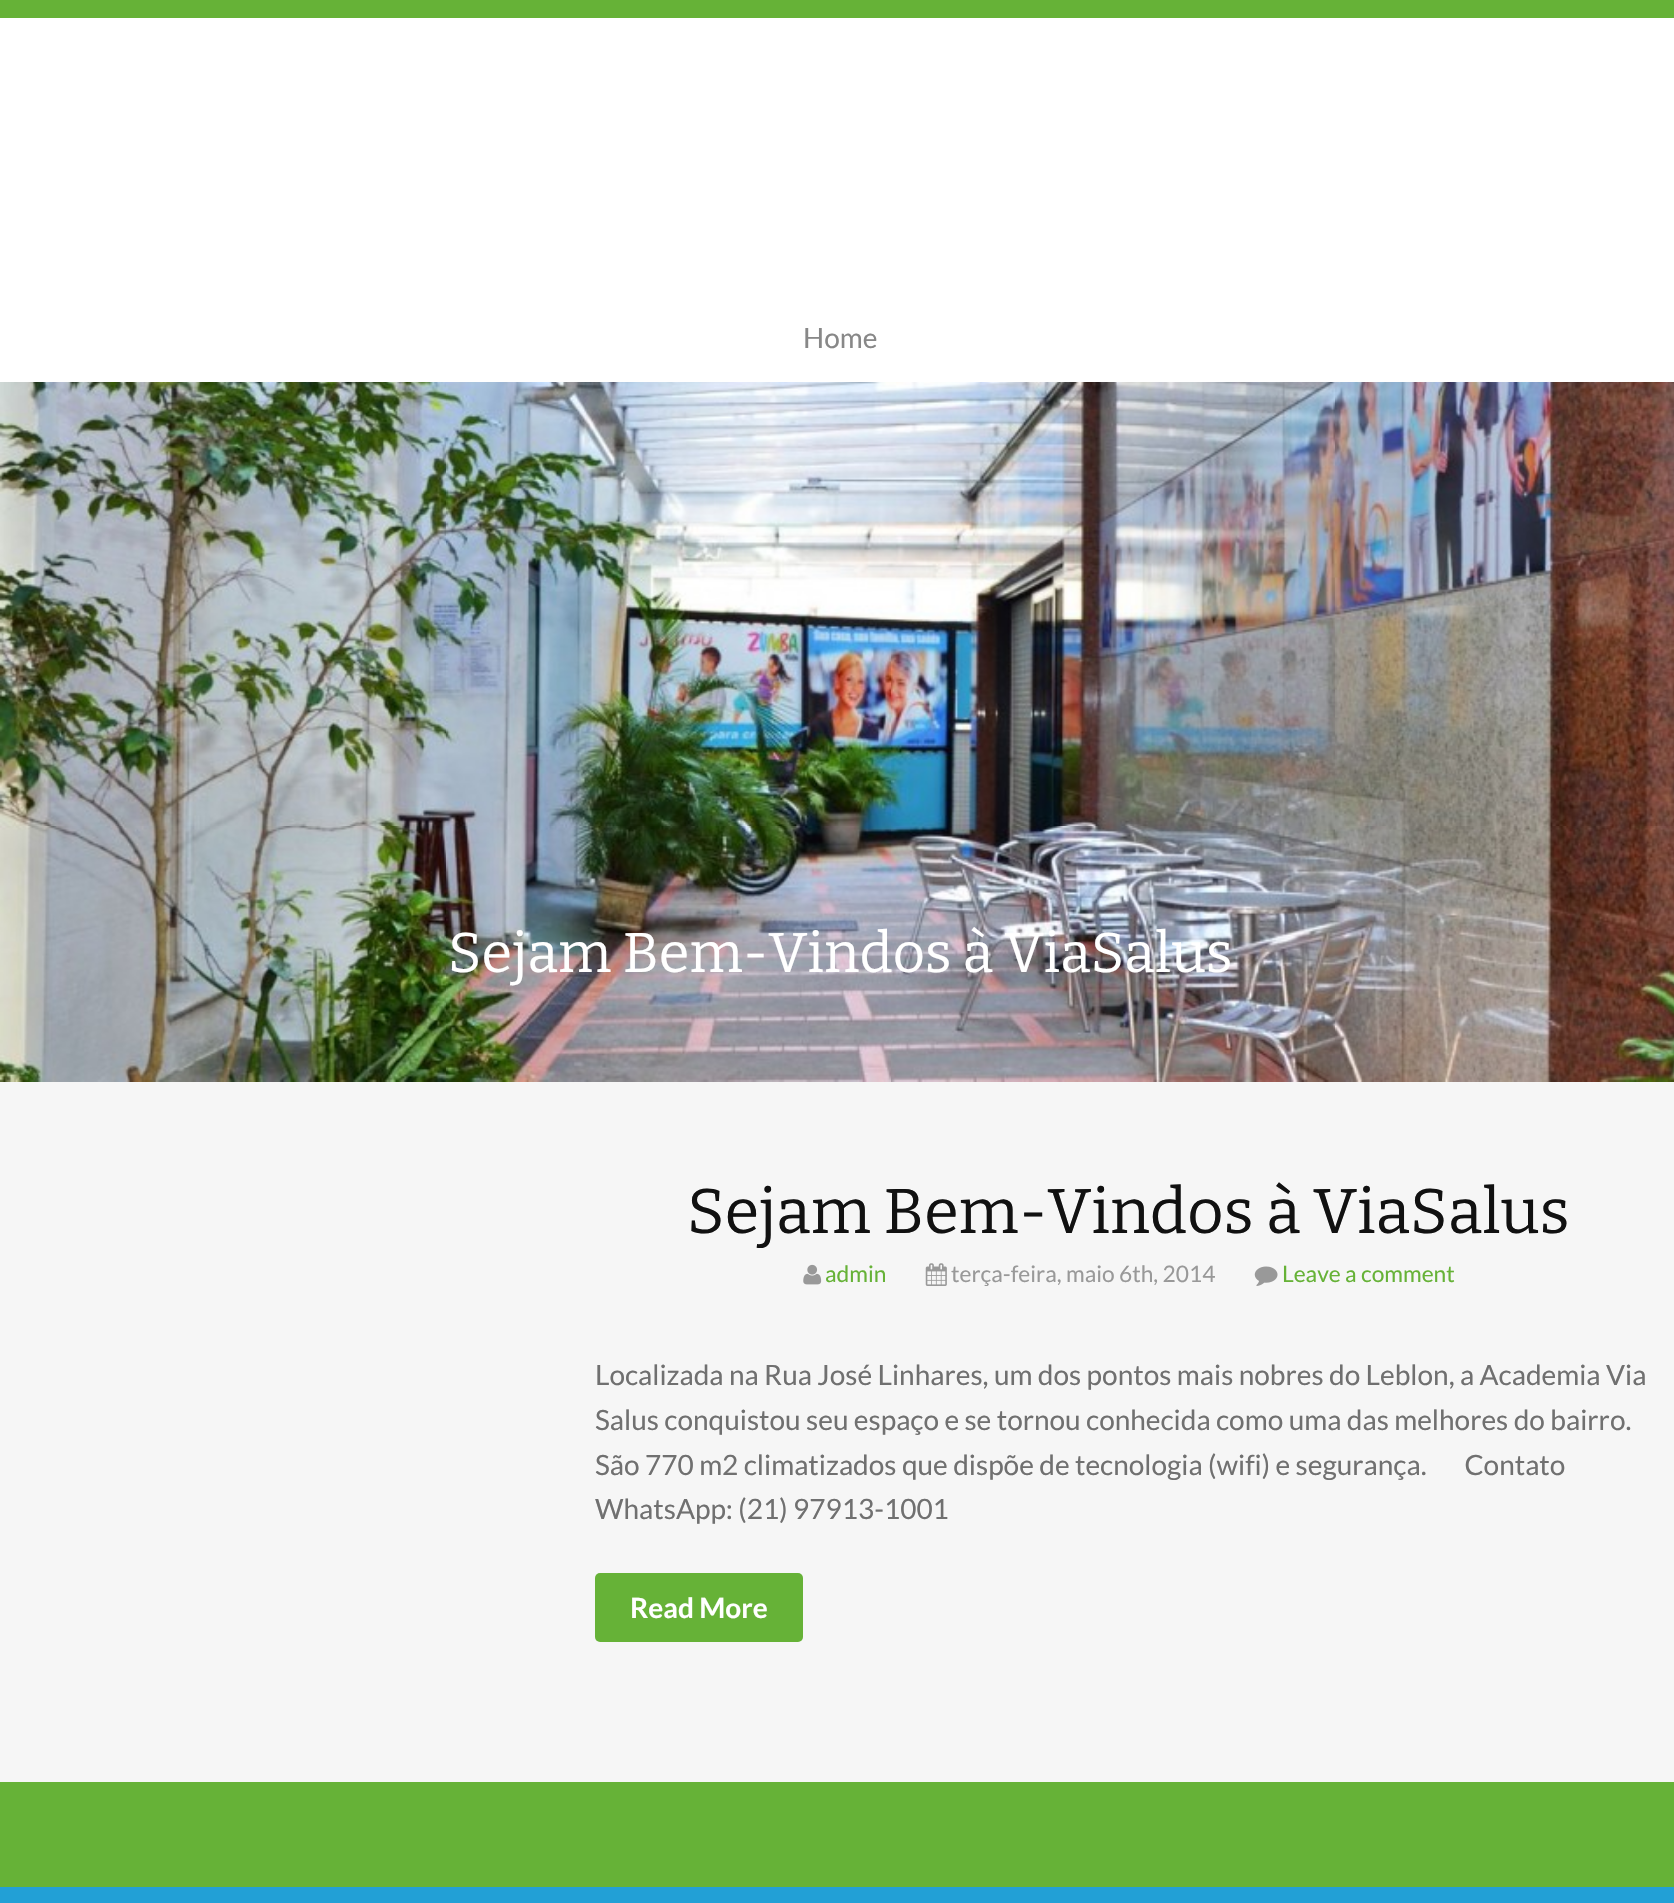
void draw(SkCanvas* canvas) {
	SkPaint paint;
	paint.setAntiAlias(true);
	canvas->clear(0xffffffff);
	paint.setColor(0xff66b237);
	canvas->drawRect(SkRect::MakeXYWH(0, 0, 1674, 18), paint);
	SkFont f1(fontMgr->matchFamilyStyle("Lato", SkFontStyle::Normal()), 28);
	f1.setSubpixel(true);
	paint.setColor(0xff888888);
	canvas->drawString("Home", 803, 348, f1, paint);
	canvas->drawImageRect(SkImages::DeferredFromEncodedData(SkData::MakeFromFileName("img1.png")), SkRect::MakeXYWH(0, 382, 1674, 700), SkSamplingOptions());
	SkFont f2(fontMgr->matchFamilyStyle("Bitter", SkFontStyle::Normal()), 56);
	f2.setSubpixel(true);
	paint.setColor(0xffffffff);
	canvas->drawString("Sejam Bem-Vindos à ViaSalus", 448, 972, f2, paint);
	paint.setColor(0xfff6f6f6);
	canvas->drawRect(SkRect::MakeXYWH(0, 1082, 1674, 700), paint);
	SkFont f3(fontMgr->matchFamilyStyle("Bitter", SkFontStyle::Normal()), 63);
	f3.setSubpixel(true);
	paint.setColor(0xff111111);
	canvas->drawString("Sejam Bem-Vindos à ViaSalus", 687, 1233, f3, paint);
	canvas->drawImageRect(SkImages::DeferredFromEncodedData(SkData::MakeFromFileName("img2.png")), SkRect::MakeXYWH(803, 1264, 19, 21), SkSamplingOptions());
	SkFont f4(fontMgr->matchFamilyStyle("Lato", SkFontStyle::Normal()), 22.75);
	f4.setSubpixel(true);
	paint.setColor(0xff66b237);
	canvas->drawString("admin", 825, 1282, f4, paint);
	canvas->drawImageRect(SkImages::DeferredFromEncodedData(SkData::MakeFromFileName("img3.png")), SkRect::MakeXYWH(925, 1263, 22, 23), SkSamplingOptions());
	paint.setColor(0xff999999);
	canvas->drawString("terça-feira, maio 6th, 2014", 951, 1282, f4, paint);
	canvas->drawImageRect(SkImages::DeferredFromEncodedData(SkData::MakeFromFileName("img4.png")), SkRect::MakeXYWH(1254, 1266, 24, 20), SkSamplingOptions());
	paint.setColor(0xff66b237);
	canvas->drawString("Leave a comment", 1282, 1282, f4, paint);
	paint.setColor(0xff707070);
	canvas->drawString("Localizada na Rua José Linhares, um dos pontos mais nobres do Leblon, a Academia Via", 595, 1385, f1, paint);
	canvas->drawString("Salus conquistou seu espaço e se tornou conhecida como uma das melhores do bairro.", 595, 1430, f1, paint);
	canvas->drawString("São 770 m2 climatizados que dispõe de tecnologia (wifi) e segurança.       Contato", 595, 1475, f1, paint);
	canvas->drawString("WhatsApp: (21) 97913-1001", 595, 1519, f1, paint);
	paint.setColor(0xff66b237);
	canvas->drawRoundRect(SkRect::MakeXYWH(595, 1573, 208, 69), 5, 5, paint);
	SkFont f5(fontMgr->matchFamilyStyle("Lato", SkFontStyle::Bold()), 28);
	f5.setSubpixel(true);
	paint.setColor(0xffffffff);
	canvas->drawString("Read More", 630, 1618, f5, paint);
	paint.setColor(0xff66b237);
	canvas->drawRect(SkRect::MakeXYWH(0, 1782, 1674, 105), paint);
	paint.setColor(0xff22a0d6);
	canvas->drawRect(SkRect::MakeXYWH(0, 1887, 1674, 16), paint);
}
